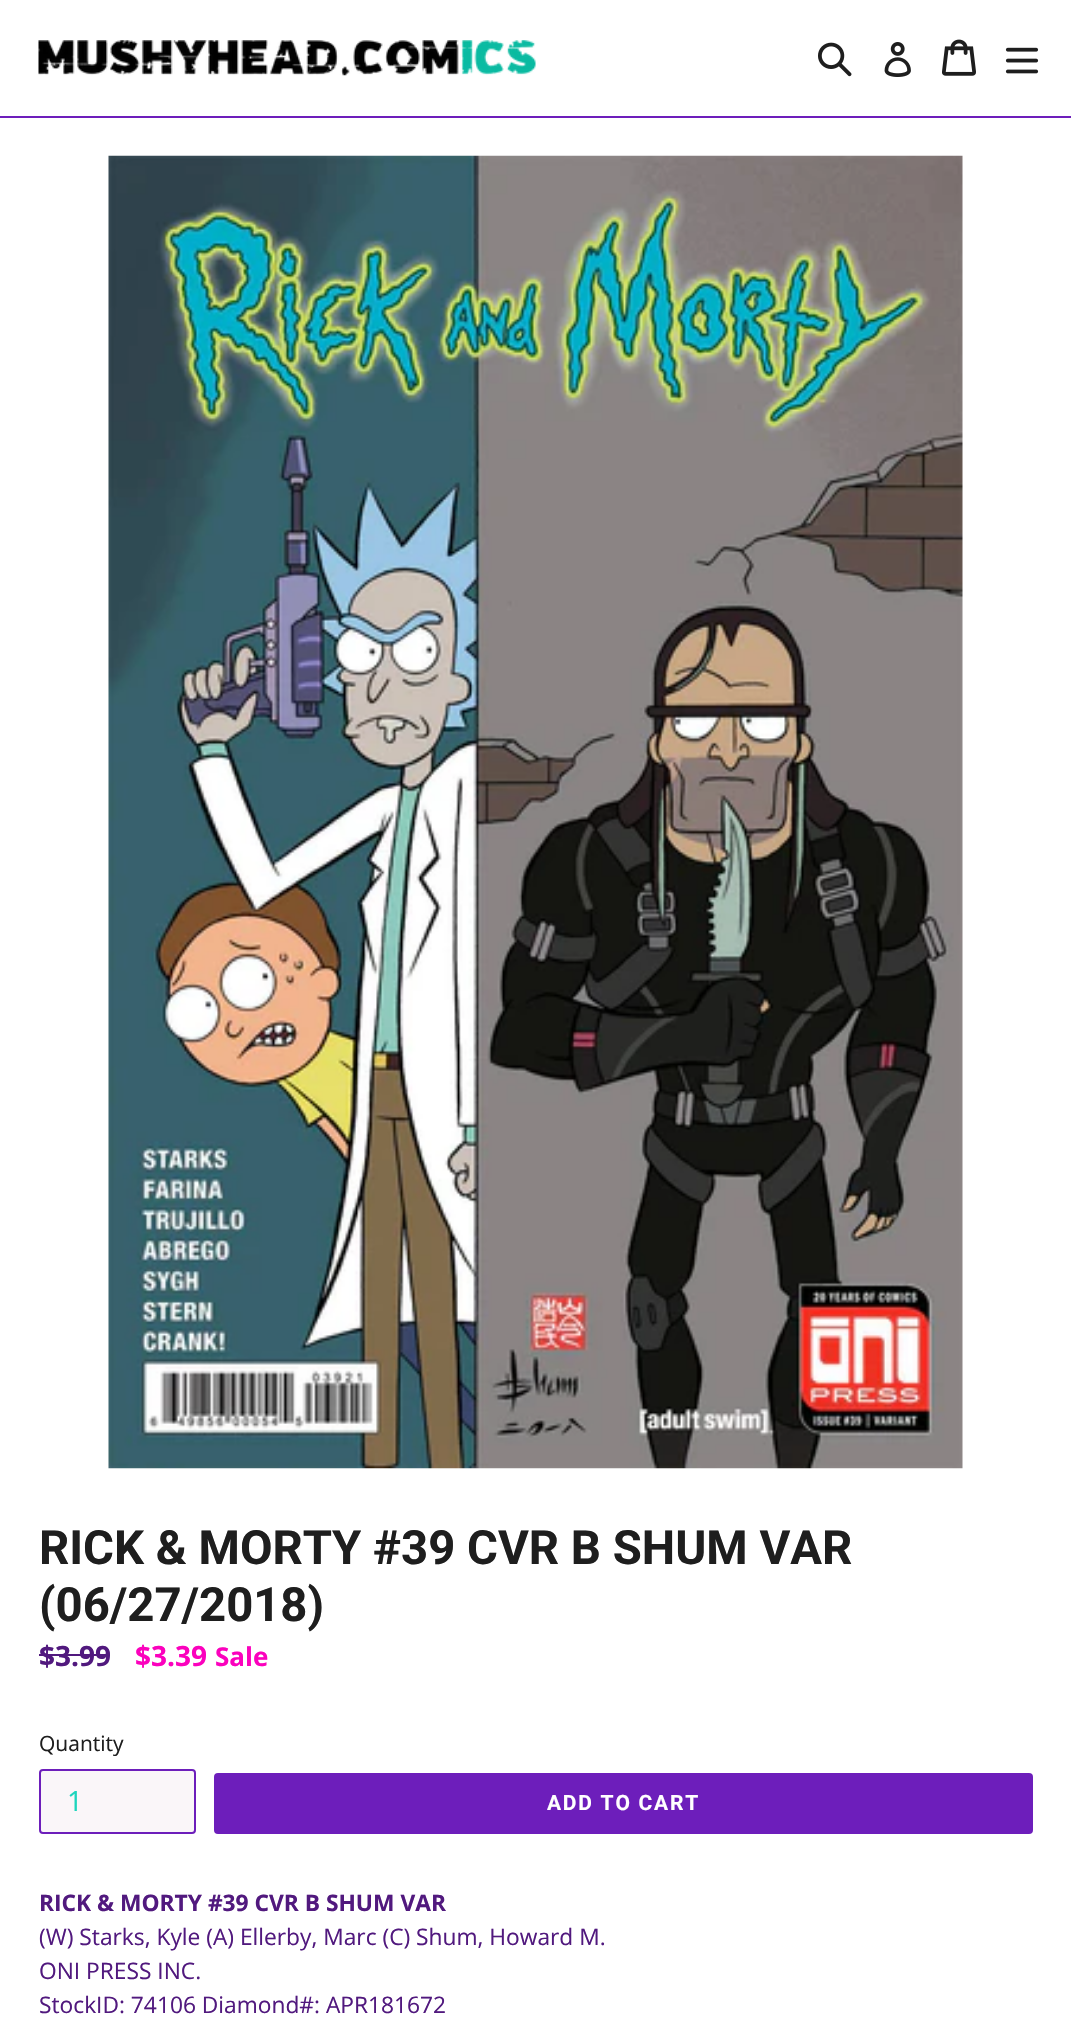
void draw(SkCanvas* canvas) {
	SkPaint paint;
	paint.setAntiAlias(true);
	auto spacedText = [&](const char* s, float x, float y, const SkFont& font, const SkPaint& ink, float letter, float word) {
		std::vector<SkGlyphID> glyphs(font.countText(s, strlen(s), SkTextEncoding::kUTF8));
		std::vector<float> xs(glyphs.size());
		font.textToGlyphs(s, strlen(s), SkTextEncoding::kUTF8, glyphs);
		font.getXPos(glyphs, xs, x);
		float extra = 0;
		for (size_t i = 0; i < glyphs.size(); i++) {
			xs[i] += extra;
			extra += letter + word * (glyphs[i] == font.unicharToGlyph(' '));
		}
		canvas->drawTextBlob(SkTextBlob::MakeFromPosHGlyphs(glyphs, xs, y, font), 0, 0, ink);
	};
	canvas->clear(0xffffffff);
	paint.setColor(0xff6d1ebb);
	canvas->drawRect(SkRect::MakeXYWH(0, 116, 1071, 2), paint);
	canvas->drawImageRect(SkImages::DeferredFromEncodedData(SkData::MakeFromFileName("img1.png")), SkRect::MakeXYWH(38, 40, 498, 36), SkSamplingOptions());
	canvas->drawImageRect(SkImages::DeferredFromEncodedData(SkData::MakeFromFileName("img2.png")), SkRect::MakeXYWH(818, 42, 34, 35), SkSamplingOptions());
	canvas->drawImageRect(SkImages::DeferredFromEncodedData(SkData::MakeFromFileName("img3.png")), SkRect::MakeXYWH(884, 42, 27, 35), SkSamplingOptions());
	canvas->drawImageRect(SkImages::DeferredFromEncodedData(SkData::MakeFromFileName("img4.png")), SkRect::MakeXYWH(942, 39, 34, 37), SkSamplingOptions());
	canvas->drawImageRect(SkImages::DeferredFromEncodedData(SkData::MakeFromFileName("img5.png")), SkRect::MakeXYWH(1005, 47, 34, 27), SkSamplingOptions());
	canvas->drawImageRect(SkImages::DeferredFromEncodedData(SkData::MakeFromFileName("img6.png")), SkRect::MakeXYWH(108, 155, 855, 1314), SkSamplingOptions());
	SkFont f1(fontMgr->matchFamilyStyle("Roboto", SkFontStyle::Bold()), 47.25);
	f1.setSubpixel(true);
	paint.setColor(0xff1e1e1e);
	canvas->drawString("RICK & MORTY #39 CVR B SHUM VAR", 39, 1564, f1, paint);
	canvas->drawString("(06/27/2018)", 39, 1621, f1, paint);
	SkFont f2(fontMgr->matchFamilyStyle("Open Sans", SkFontStyle::Bold()), 28);
	f2.setSubpixel(true);
	paint.setColor(0xff51197e);
	canvas->drawString("$3.99", 39, 1666, f2, paint);
	canvas->drawRect(SkRect::MakeXYWH(39, 1654, 71, 2), paint);
	paint.setColor(0xfffb01bd);
	canvas->drawString("$3.39", 135, 1666, f2, paint);
	SkFont f3(fontMgr->matchFamilyStyle("Open Sans", SkFontStyle::Bold()), 26);
	f3.setSubpixel(true);
	canvas->drawString("Sale", 215, 1666, f3, paint);
	SkFont f4(fontMgr->matchFamilyStyle("Open Sans", SkFontStyle::Normal()), 21);
	f4.setSubpixel(true);
	paint.setColor(0xff1e1e1e);
	canvas->drawString("Quantity", 39, 1751, f4, paint);
	paint.setColor(0xfffaf6f9);
	canvas->drawRoundRect(SkRect::MakeXYWH(40, 1770, 155, 63), 3, 3, paint);
	paint.setStroke(true);
	paint.setStrokeWidth(2);
	paint.setColor(0xff6d1ebb);
	canvas->drawRoundRect(SkRect::MakeXYWH(40, 1770, 155, 63), 3, 3, paint);
	SkFont f5(fontMgr->matchFamilyStyle("Open Sans", SkFontStyle::Normal()), 28);
	f5.setSubpixel(true);
	paint.setStroke(false);
	paint.setColor(0xff1dd5bd);
	canvas->drawString("1", 67, 1811, f5, paint);
	paint.setColor(0xff6d1ebb);
	canvas->drawRoundRect(SkRect::MakeXYWH(214, 1773, 819, 61), 4, 4, paint);
	SkFont f6(fontMgr->matchFamilyStyle("Roboto", SkFontStyle::Bold()), 21);
	f6.setSubpixel(true);
	paint.setColor(0xffffffff);
	spacedText("ADD TO CART", 547, 1810, f6, paint, 1.75, 0);
	SkFont f7(fontMgr->matchFamilyStyle("Open Sans", SkFontStyle::Bold()), 22.75);
	f7.setSubpixel(true);
	paint.setColor(0xff51197e);
	canvas->drawString("RICK & MORTY #39 CVR B SHUM VAR", 39, 1911, f7, paint);
	SkFont f8(fontMgr->matchFamilyStyle("Open Sans", SkFontStyle::Normal()), 22.75);
	f8.setSubpixel(true);
	canvas->drawString("(W) Starks, Kyle (A) Ellerby, Marc (C) Shum, Howard M.", 39, 1945, f8, paint);
	canvas->drawString("ONI PRESS INC.", 39, 1979, f8, paint);
	canvas->drawString("StockID: 74106 Diamond#: APR181672", 39, 2013, f8, paint);
}
